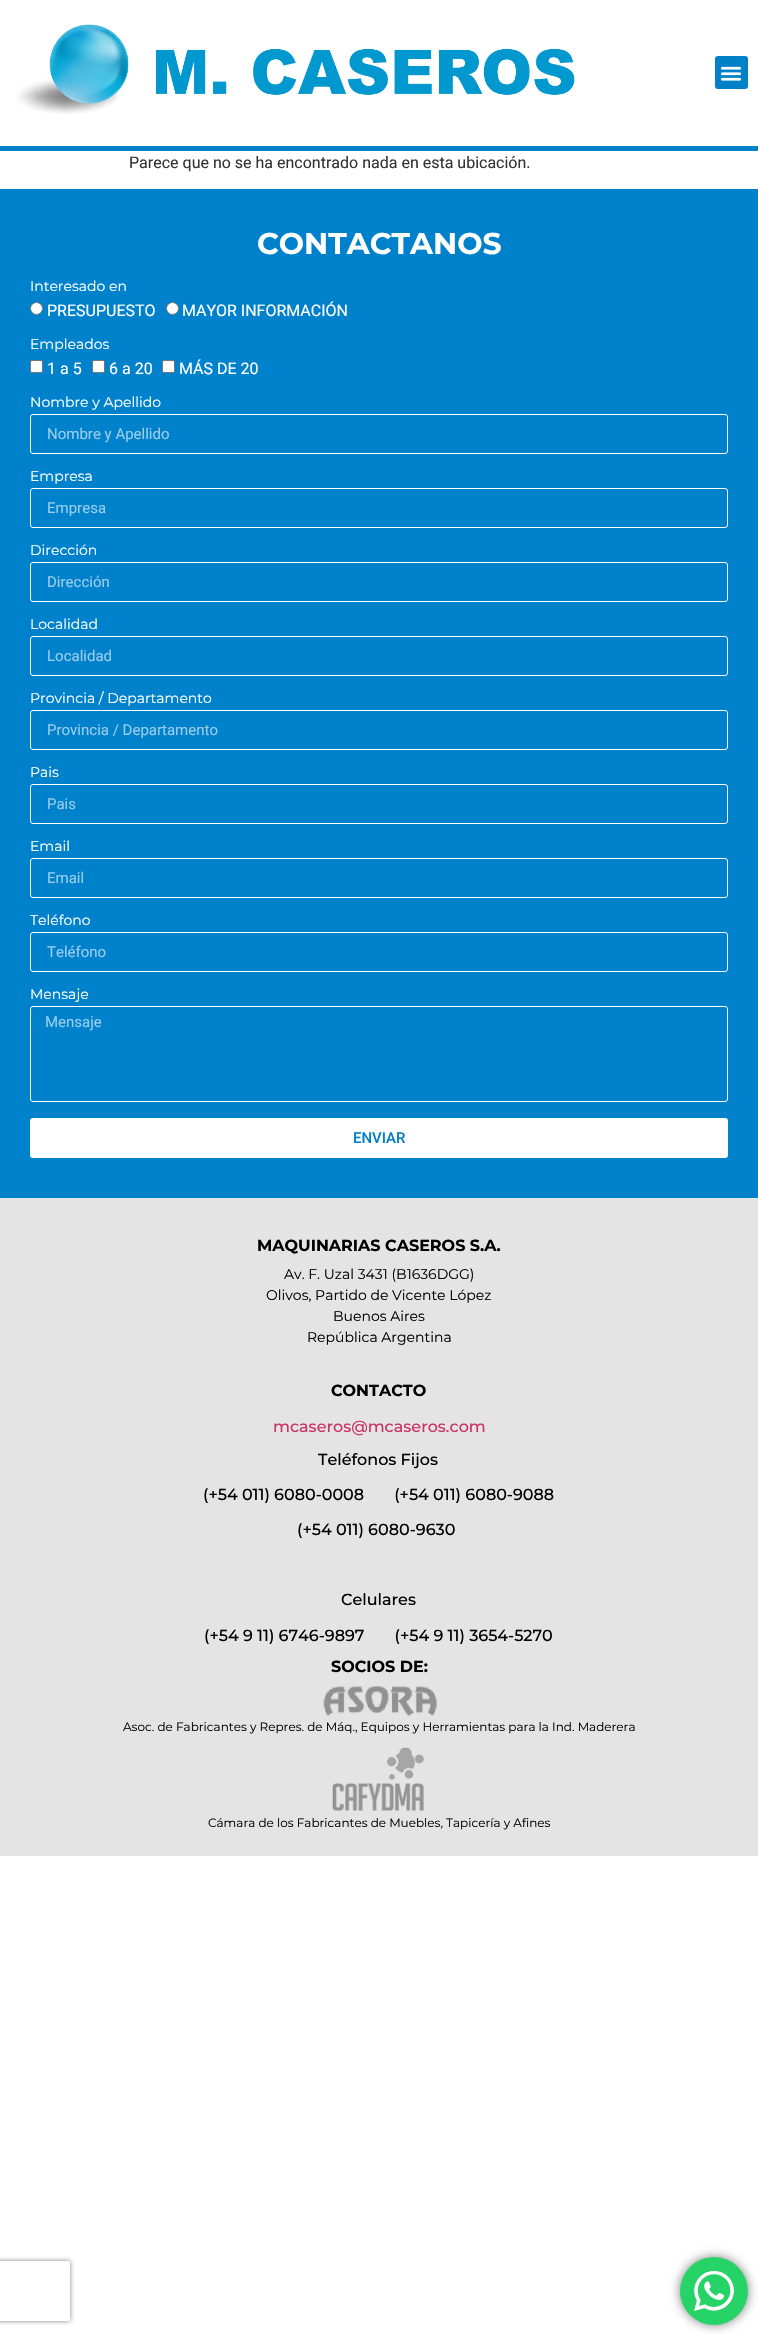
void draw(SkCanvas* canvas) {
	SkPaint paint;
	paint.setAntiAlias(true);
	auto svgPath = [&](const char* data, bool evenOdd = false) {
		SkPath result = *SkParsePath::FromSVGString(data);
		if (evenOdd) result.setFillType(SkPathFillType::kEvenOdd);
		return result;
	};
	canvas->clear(0xffffffff);
	paint.setColor(0xff0081c8);
	canvas->drawRect(SkRect::MakeXYWH(0, 146, 758, 5), paint);
	canvas->drawImageRect(SkImages::DeferredFromEncodedData(SkData::MakeFromFileName("img1.png")), SkRect::MakeXYWH(16, 24, 559, 90), SkSamplingOptions());
	canvas->drawRoundRect(SkRect::MakeXYWH(715, 56, 33, 33), 3, 3, paint);
	canvas->drawImageRect(SkImages::DeferredFromEncodedData(SkData::MakeFromFileName("img2.png")), SkRect::MakeXYWH(720, 66, 22, 15), SkSamplingOptions());
	SkFont f1(fontMgr->matchFamilyStyle("Roboto", SkFontStyle::Normal()), 16);
	f1.setSubpixel(true);
	paint.setColor(0xff333333);
	canvas->drawString("Parece que no se ha encontrado nada en esta ubicación.", 129, 168, f1, paint);
	paint.setColor(0xff0081cc);
	canvas->drawRect(SkRect::MakeXYWH(0, 189, 758, 1009), paint);
	SkFont f2(fontMgr->matchFamilyStyle("Montserrat", SkFontStyle::Bold()), 30);
	f2.setSubpixel(true);
	paint.setColor(0xffffffff);
	canvas->drawString("CONTACTANOS", 257, 254, f2, paint);
	SkFont f3(fontMgr->matchFamilyStyle("Montserrat", SkFontStyle::Normal()), 14);
	f3.setSubpixel(true);
	canvas->drawString("Interesado en", 30, 291, f3, paint);
	canvas->drawCircle(36.5, 308.5, 6, paint);
	paint.setStroke(true);
	paint.setStrokeWidth(1);
	paint.setColor(0xff767676);
	canvas->drawCircle(36.5, 308.5, 6, paint);
	paint.setStroke(false);
	paint.setColor(0xffffffff);
	canvas->drawString("PRESUPUESTO", 47, 316, f1, paint);
	canvas->drawCircle(172.5, 308.5, 6, paint);
	paint.setStroke(true);
	paint.setColor(0xff767676);
	canvas->drawCircle(172.5, 308.5, 6, paint);
	paint.setStroke(false);
	paint.setColor(0xffffffff);
	canvas->drawString("MAYOR INFORMACIÓN", 182, 316, f1, paint);
	canvas->drawString("Empleados", 30, 349, f3, paint);
	canvas->drawRoundRect(SkRect::MakeXYWH(30.5, 360.5, 12, 12), 1.5, 1.5, paint);
	paint.setStroke(true);
	paint.setColor(0xff767676);
	canvas->drawRoundRect(SkRect::MakeXYWH(30.5, 360.5, 12, 12), 1.5, 1.5, paint);
	paint.setStroke(false);
	paint.setColor(0xffffffff);
	canvas->drawString("1 a 5", 47, 374, f1, paint);
	canvas->drawRoundRect(SkRect::MakeXYWH(92.5, 360.5, 12, 12), 1.5, 1.5, paint);
	paint.setStroke(true);
	paint.setColor(0xff767676);
	canvas->drawRoundRect(SkRect::MakeXYWH(92.5, 360.5, 12, 12), 1.5, 1.5, paint);
	paint.setStroke(false);
	paint.setColor(0xffffffff);
	canvas->drawString("6 a 20", 109, 374, f1, paint);
	canvas->drawRoundRect(SkRect::MakeXYWH(162.5, 360.5, 12, 12), 1.5, 1.5, paint);
	paint.setStroke(true);
	paint.setColor(0xff767676);
	canvas->drawRoundRect(SkRect::MakeXYWH(162.5, 360.5, 12, 12), 1.5, 1.5, paint);
	paint.setStroke(false);
	paint.setColor(0xffffffff);
	canvas->drawString("MÁS DE 20", 179, 374, f1, paint);
	canvas->drawString("Nombre y Apellido", 30, 407, f3, paint);
	paint.setStroke(true);
	canvas->drawRoundRect(SkRect::MakeXYWH(30.5, 414.5, 697, 39), 2.5, 2.5, paint);
	SkFont f4(fontMgr->matchFamilyStyle("Roboto", SkFontStyle::Normal()), 15);
	f4.setSubpixel(true);
	paint.setStroke(false);
	paint.setColor(0xff99cdeb);
	canvas->drawString("Nombre y Apellido", 47, 439, f4, paint);
	paint.setColor(0xffffffff);
	canvas->drawString("Empresa", 30, 481, f3, paint);
	paint.setStroke(true);
	canvas->drawRoundRect(SkRect::MakeXYWH(30.5, 488.5, 697, 39), 2.5, 2.5, paint);
	paint.setStroke(false);
	paint.setColor(0xff99cdeb);
	canvas->drawString("Empresa", 47, 513, f4, paint);
	paint.setColor(0xffffffff);
	canvas->drawString("Dirección", 30, 555, f3, paint);
	paint.setStroke(true);
	canvas->drawRoundRect(SkRect::MakeXYWH(30.5, 562.5, 697, 39), 2.5, 2.5, paint);
	paint.setStroke(false);
	paint.setColor(0xff99cdeb);
	canvas->drawString("Dirección", 47, 587, f4, paint);
	paint.setColor(0xffffffff);
	canvas->drawString("Localidad", 30, 629, f3, paint);
	paint.setStroke(true);
	canvas->drawRoundRect(SkRect::MakeXYWH(30.5, 636.5, 697, 39), 2.5, 2.5, paint);
	paint.setStroke(false);
	paint.setColor(0xff99cdeb);
	canvas->drawString("Localidad", 47, 661, f4, paint);
	paint.setColor(0xffffffff);
	canvas->drawString("Provincia / Departamento", 30, 703, f3, paint);
	paint.setStroke(true);
	canvas->drawRoundRect(SkRect::MakeXYWH(30.5, 710.5, 697, 39), 2.5, 2.5, paint);
	paint.setStroke(false);
	paint.setColor(0xff99cdeb);
	canvas->drawString("Provincia / Departamento", 47, 735, f4, paint);
	paint.setColor(0xffffffff);
	canvas->drawString("Pais", 30, 777, f3, paint);
	paint.setStroke(true);
	canvas->drawRoundRect(SkRect::MakeXYWH(30.5, 784.5, 697, 39), 2.5, 2.5, paint);
	paint.setStroke(false);
	paint.setColor(0xff99cdeb);
	canvas->drawString("Pais", 47, 809, f4, paint);
	paint.setColor(0xffffffff);
	canvas->drawString("Email", 30, 851, f3, paint);
	paint.setStroke(true);
	canvas->drawRoundRect(SkRect::MakeXYWH(30.5, 858.5, 697, 39), 2.5, 2.5, paint);
	paint.setStroke(false);
	paint.setColor(0xff99cdeb);
	canvas->drawString("Email", 47, 883, f4, paint);
	paint.setColor(0xffffffff);
	canvas->drawString("Teléfono", 30, 925, f3, paint);
	paint.setStroke(true);
	canvas->drawRoundRect(SkRect::MakeXYWH(30.5, 932.5, 697, 39), 2.5, 2.5, paint);
	paint.setStroke(false);
	paint.setColor(0xff99cdeb);
	canvas->drawString("Teléfono", 47, 957, f4, paint);
	paint.setColor(0xffffffff);
	canvas->drawString("Mensaje", 30, 999, f3, paint);
	paint.setStroke(true);
	canvas->drawRoundRect(SkRect::MakeXYWH(30.5, 1006.5, 697, 95), 2.5, 2.5, paint);
	paint.setStroke(false);
	paint.setColor(0xff99cdeb);
	canvas->drawString("Mensaje", 45, 1027, f4, paint);
	paint.setColor(0xffffffff);
	canvas->drawRoundRect(SkRect::MakeXYWH(30, 1118, 698, 40), 3, 3, paint);
	SkFont f5(fontMgr->matchFamilyStyle("Roboto", SkFontStyle(500, SkFontStyle::kNormal_Width, SkFontStyle::kUpright_Slant)), 15);
	f5.setSubpixel(true);
	paint.setColor(0xff0080c6);
	canvas->drawString("ENVIAR", 353, 1143, f5, paint);
	canvas->save();
	canvas->clipPath(svgPath("M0 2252H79V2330H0ZM-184 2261H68C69 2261 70 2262 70 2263V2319C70 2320 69 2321 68 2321H-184C-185 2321-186 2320-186 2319V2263C-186 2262-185 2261-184 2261Z", true), true);
	paint.setColor(0xff808080);
	paint.setMaskFilter(SkMaskFilter::MakeBlur(kNormal_SkBlurStyle, 2.5));
	canvas->drawRoundRect(SkRect::MakeXYWH(-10, 2261, 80, 60), 2, 2, paint);
	paint.setMaskFilter(nullptr);
	canvas->restore();
	paint.setColor(0xffe4e4e4);
	canvas->drawRect(SkRect::MakeXYWH(0, 1198, 758, 658), paint);
	SkFont f6(fontMgr->matchFamilyStyle("Montserrat", SkFontStyle::Bold()), 16);
	f6.setSubpixel(true);
	paint.setColor(0xff000000);
	canvas->drawString("MAQUINARIAS CASEROS S.A.", 257, 1251, f6, paint);
	canvas->drawString("Av. F. Uzal 3431 (B1636DGG)", 284, 1279, f3, paint);
	canvas->drawString("Olivos, Partido de Vicente López", 266, 1300, f3, paint);
	canvas->drawString("Buenos Aires", 333, 1321, f3, paint);
	canvas->drawString("República Argentina", 307, 1342, f3, paint);
	canvas->drawString("CONTACTO", 331, 1396, f6, paint);
	SkFont f7(fontMgr->matchFamilyStyle("Montserrat", SkFontStyle(500, SkFontStyle::kNormal_Width, SkFontStyle::kUpright_Slant)), 16);
	f7.setSubpixel(true);
	paint.setColor(0xffcc3366);
	canvas->drawString("mcaseros@mcaseros.com", 273, 1432, f7, paint);
	paint.setColor(0xff000000);
	canvas->drawString("Teléfonos Fijos", 318, 1465, f7, paint);
	canvas->drawString("(+54 011) 6080-0008       (+54 011) 6080-9088", 203, 1500, f7, paint);
	canvas->drawString("(+54 011) 6080-9630", 297, 1535, f7, paint);
	canvas->drawString("Celulares", 341, 1605, f7, paint);
	canvas->drawString("(+54 9 11) 6746-9897       (+54 9 11) 3654-5270", 204, 1641, f7, paint);
	canvas->drawString("SOCIOS DE:", 331, 1672, f6, paint);
	canvas->drawImageRect(SkImages::DeferredFromEncodedData(SkData::MakeFromFileName("img3.png")), SkRect::MakeXYWH(323, 1685, 115, 32), SkSamplingOptions());
	SkFont f8(fontMgr->matchFamilyStyle("Montserrat", SkFontStyle::Normal()), 12);
	f8.setSubpixel(true);
	canvas->drawString("Asoc. de Fabricantes y Repres. de Máq., Equipos y Herramientas para la Ind. Maderera", 123, 1731, f8, paint);
	canvas->drawImageRect(SkImages::DeferredFromEncodedData(SkData::MakeFromFileName("img4.png")), SkRect::MakeXYWH(332, 1747, 92, 64), SkSamplingOptions());
	canvas->drawString("Cámara de los Fabricantes de Muebles, Tapicería y Afines", 208, 1827, f8, paint);
	paint.setColor(0x80000000);
	paint.setMaskFilter(SkMaskFilter::MakeBlur(kNormal_SkBlurStyle, 5.5));
	canvas->drawRoundRect(SkRect::MakeXYWH(680, 2257, 68, 68), 34, 34, paint);
	paint.setMaskFilter(nullptr);
	paint.setColor(0xff25d366);
	canvas->drawCircle(714, 2291, 34, paint);
	canvas->drawImageRect(SkImages::DeferredFromEncodedData(SkData::MakeFromFileName("img5.png")), SkRect::MakeXYWH(694, 2271, 40, 40), SkSamplingOptions());
}
